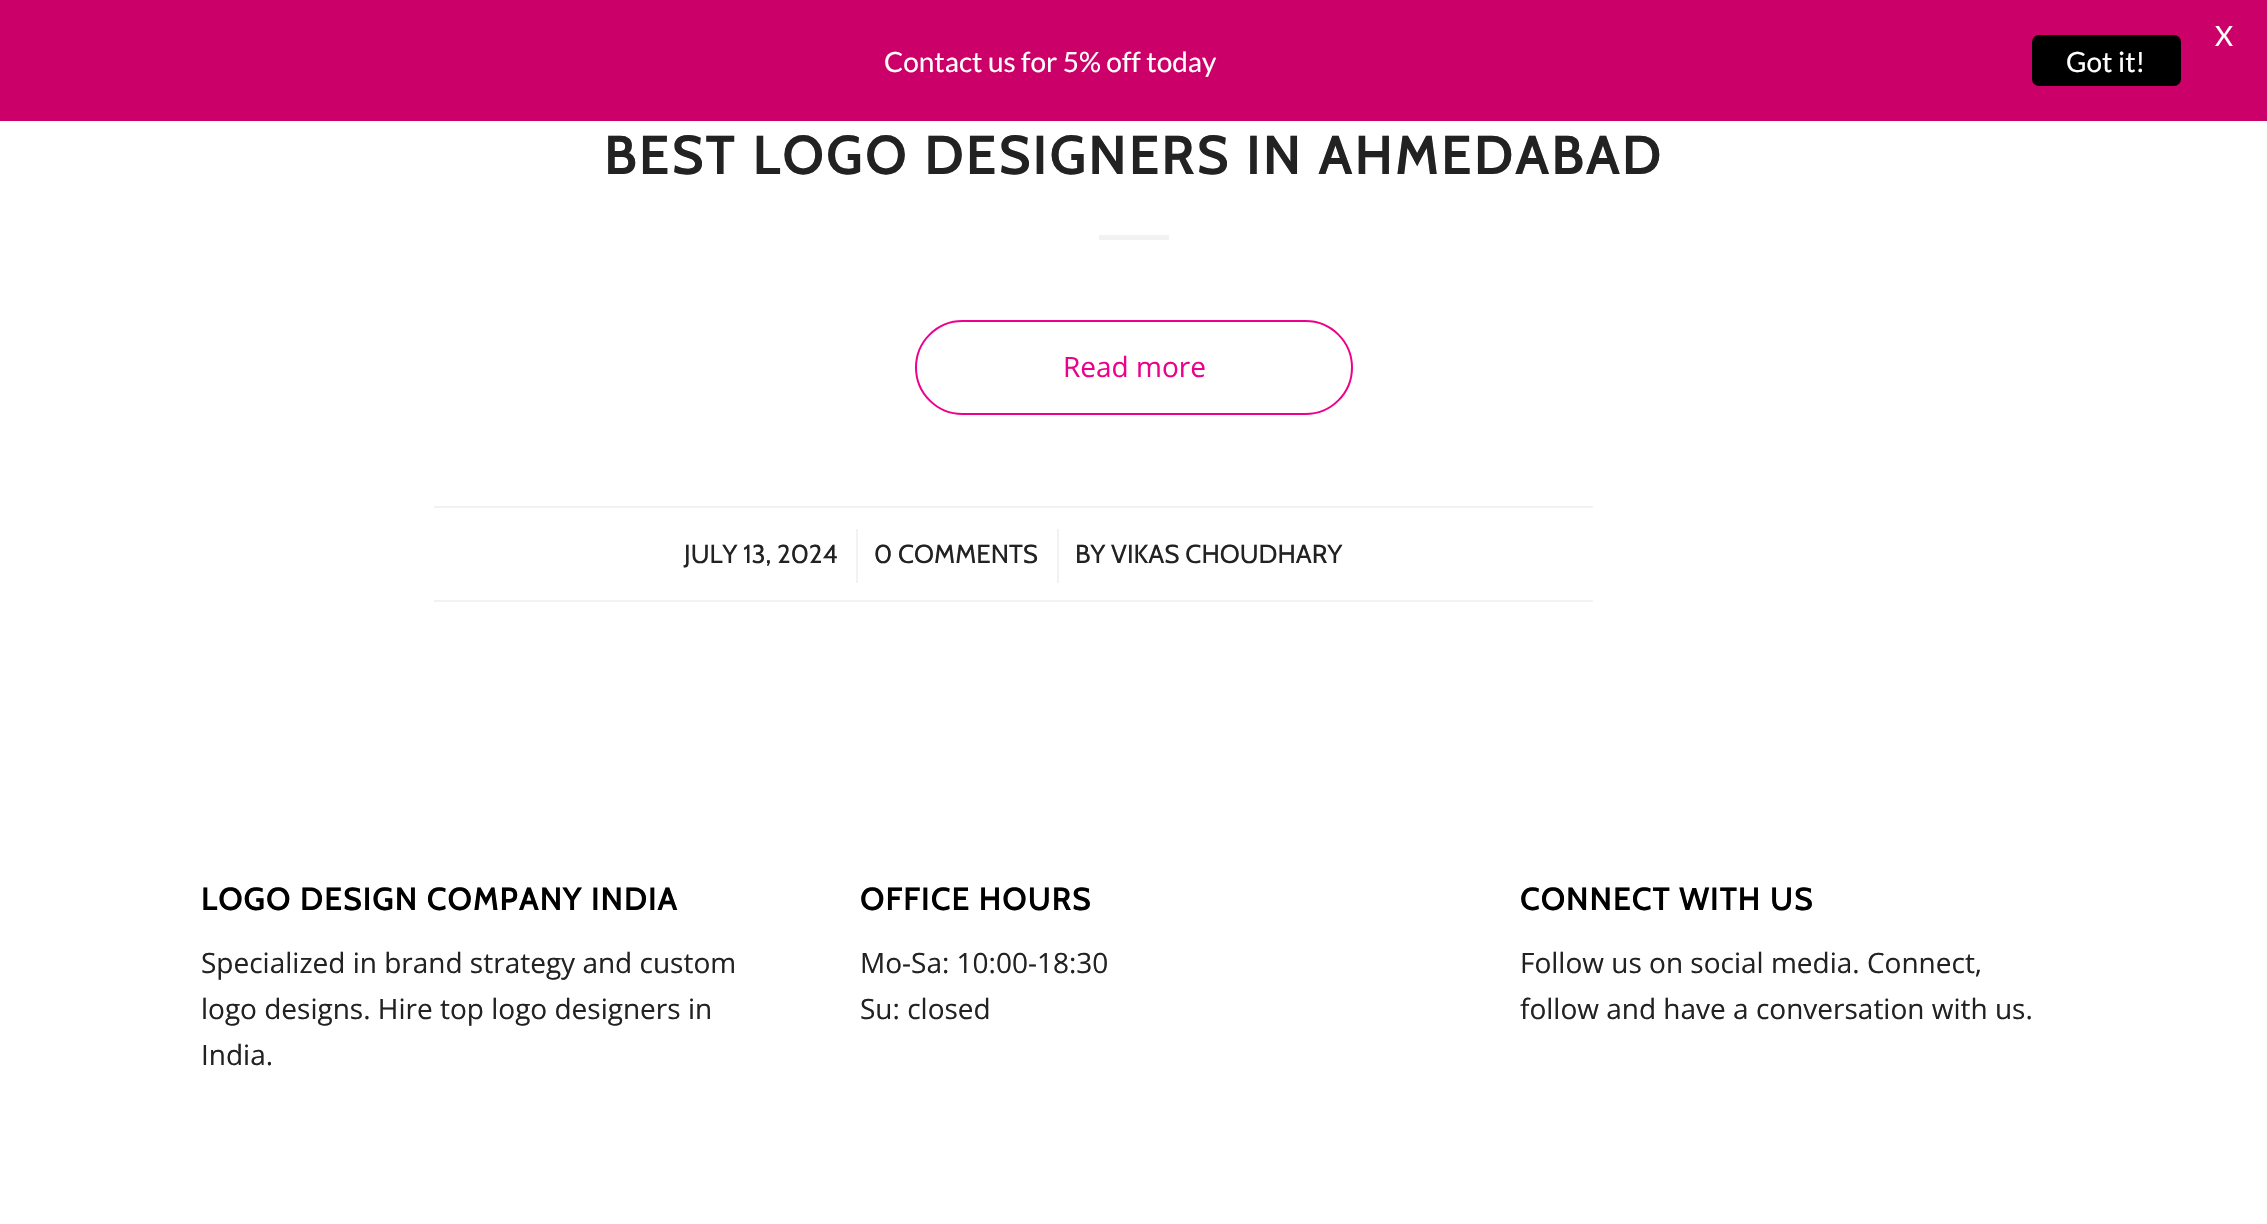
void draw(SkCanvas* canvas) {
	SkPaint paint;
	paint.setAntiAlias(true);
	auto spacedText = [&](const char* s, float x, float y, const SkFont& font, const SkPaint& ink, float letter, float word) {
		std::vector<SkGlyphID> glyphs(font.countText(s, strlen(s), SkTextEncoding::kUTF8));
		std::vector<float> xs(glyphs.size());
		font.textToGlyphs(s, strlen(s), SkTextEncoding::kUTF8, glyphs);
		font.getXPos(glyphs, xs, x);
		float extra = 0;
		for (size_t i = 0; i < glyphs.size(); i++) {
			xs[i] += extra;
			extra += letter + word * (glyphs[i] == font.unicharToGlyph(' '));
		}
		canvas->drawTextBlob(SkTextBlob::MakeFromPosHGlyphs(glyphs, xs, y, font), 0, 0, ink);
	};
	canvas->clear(0xffffffff);
	paint.setColor(0xffcb0068);
	canvas->drawRect(SkRect::MakeXYWH(0, 0, 2267, 121), paint);
	SkFont f1(fontMgr->matchFamilyStyle("Lato", SkFontStyle::Normal()), 28);
	f1.setSubpixel(true);
	paint.setColor(0xffffffff);
	canvas->drawString("X", 2215, 46, f1, paint);
	canvas->drawString("Contact us for 5% off today", 884, 72, f1, paint);
	paint.setColor(0xff000000);
	canvas->drawRoundRect(SkRect::MakeXYWH(2032, 35, 149, 51), 7, 7, paint);
	paint.setColor(0xffffffff);
	canvas->drawString("Got it!", 2066, 72, f1, paint);
	SkFont f2(fontMgr->matchFamilyStyle("Cabin", SkFontStyle::Bold()), 52.5);
	f2.setSubpixel(true);
	paint.setColor(0xff222222);
	spacedText("BEST LOGO DESIGNERS IN AHMEDABAD", 604, 174, f2, paint, 3.5, 0);
	paint.setColor(0xfff2f2f2);
	canvas->drawRect(SkRect::MakeXYWH(1099, 235, 70, 5), paint);
	paint.setStroke(true);
	paint.setStrokeWidth(2);
	paint.setColor(0xffed008a);
	canvas->drawRoundRect(SkRect::MakeXYWH(916, 321, 436, 93), 46.5, 46.5, paint);
	SkFont f3(fontMgr->matchFamilyStyle("Open Sans", SkFontStyle::Normal()), 28);
	f3.setSubpixel(true);
	paint.setStroke(false);
	canvas->drawString("Read more", 1063, 377, f3, paint);
	paint.setColor(0xfff2f2f2);
	canvas->drawRect(SkRect::MakeXYWH(434, 506, 1159, 2), paint);
	canvas->drawRect(SkRect::MakeXYWH(434, 600, 1159, 2), paint);
	SkFont f4(fontMgr->matchFamilyStyle("Cabin", SkFontStyle::Normal()), 26);
	f4.setSubpixel(true);
	paint.setColor(0xff222222);
	canvas->drawString("JULY 13, 2024", 684, 563, f4, paint);
	paint.setColor(0xfff2f2f2);
	canvas->drawRect(SkRect::MakeXYWH(856, 529, 2, 54), paint);
	paint.setColor(0xff222222);
	canvas->drawString("0 COMMENTS", 874, 563, f4, paint);
	paint.setColor(0xfff2f2f2);
	canvas->drawRect(SkRect::MakeXYWH(1057, 529, 2, 54), paint);
	paint.setColor(0xff222222);
	canvas->drawString("BY VIKAS CHOUDHARY", 1075, 563, f4, paint);
	SkFont f5(fontMgr->matchFamilyStyle("Cabin", SkFontStyle::Bold()), 30.75);
	f5.setSubpixel(true);
	paint.setColor(0xff000000);
	spacedText("LOGO DESIGN COMPANY INDIA", 201, 910, f5, paint, 1.75, 0);
	paint.setColor(0xff222222);
	canvas->drawString("Specialized in brand strategy and custom", 201, 973, f3, paint);
	canvas->drawString("logo designs. Hire top logo designers in", 201, 1019, f3, paint);
	canvas->drawString("India.", 201, 1065, f3, paint);
	paint.setColor(0xff000000);
	spacedText("OFFICE HOURS", 860, 910, f5, paint, 1.75, 0);
	paint.setColor(0xff222222);
	canvas->drawString("Mo-Sa: 10:00-18:30", 860, 973, f3, paint);
	canvas->drawString("Su: closed", 860, 1019, f3, paint);
	paint.setColor(0xff000000);
	spacedText("CONNECT WITH US", 1520, 910, f5, paint, 1.75, 0);
	paint.setColor(0xff222222);
	canvas->drawString("Follow us on social media. Connect,", 1520, 973, f3, paint);
	canvas->drawString("follow and have a conversation with us.", 1520, 1019, f3, paint);
}
